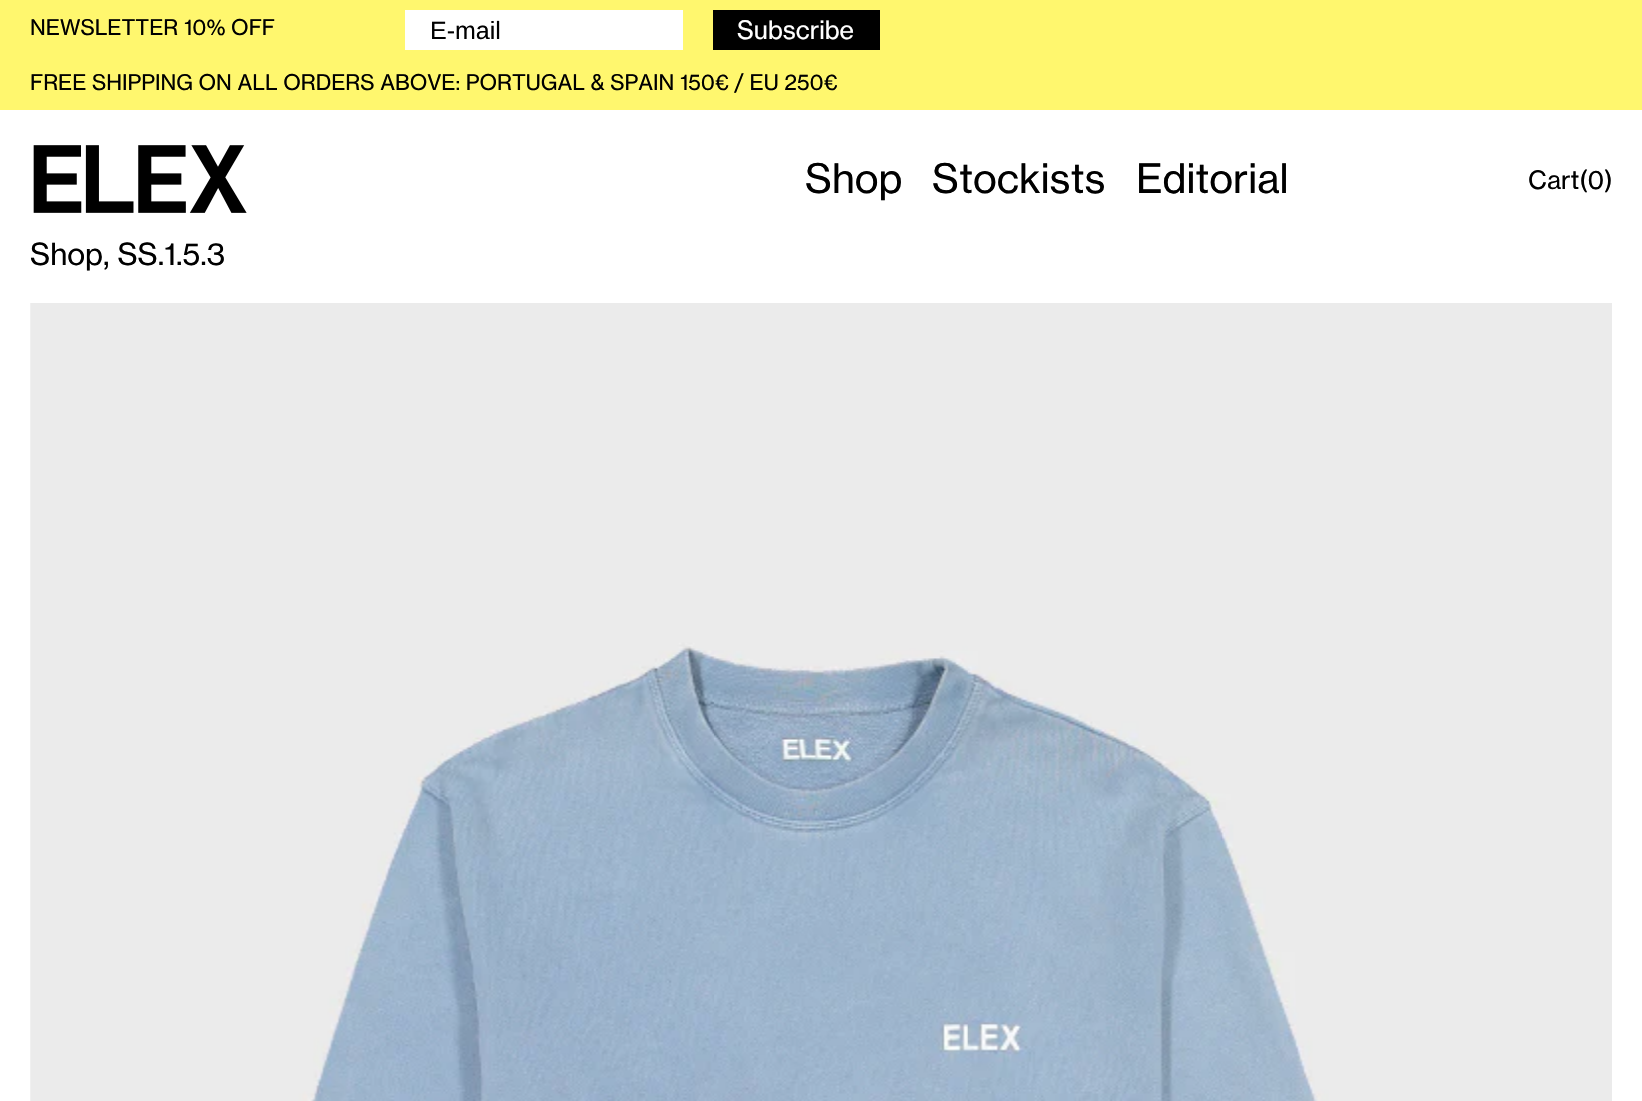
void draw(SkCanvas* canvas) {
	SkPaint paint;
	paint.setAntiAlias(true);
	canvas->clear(0xffffffff);
	paint.setColor(0xfffff76e);
	canvas->drawRect(SkRect::MakeXYWH(0, 0, 1642, 110), paint);
	SkFont f1(fontMgr->matchFamilyStyle("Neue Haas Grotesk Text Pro", SkFontStyle::Normal()), 21.25);
	f1.setSubpixel(true);
	paint.setColor(0xff000000);
	canvas->drawString("NEWSLETTER 10% OFF", 30, 35, f1, paint);
	paint.setColor(0xffffffff);
	canvas->drawRect(SkRect::MakeXYWH(405, 10, 278, 40), paint);
	SkFont f2(fontMgr->matchFamilyStyle("Liberation Sans", SkFontStyle::Normal()), 25);
	f2.setSubpixel(true);
	paint.setColor(0xff000000);
	canvas->drawString("E-mail", 430, 39, f2, paint);
	canvas->drawRect(SkRect::MakeXYWH(713, 10, 167, 40), paint);
	SkFont f3(fontMgr->matchFamilyStyle("Neue Haas Grotesk Text Pro", SkFontStyle::Normal()), 25);
	f3.setSubpixel(true);
	paint.setColor(0xffffffff);
	canvas->drawString("Subscribe", 737, 39, f3, paint);
	paint.setColor(0xff000000);
	canvas->drawString("FREE SHIPPING ON ALL ORDERS ABOVE: PORTUGAL & SPAIN 150€ / EU 250€", 30, 90, f1, paint);
	canvas->drawImageRect(SkImages::DeferredFromEncodedData(SkData::MakeFromFileName("img1.png")), SkRect::MakeXYWH(33, 145, 214, 68), SkSamplingOptions());
	SkFont f4(fontMgr->matchFamilyStyle("Neue Haas Grotesk Text Pro", SkFontStyle::Normal()), 40);
	f4.setSubpixel(true);
	canvas->drawString("Shop", 805, 193, f4, paint);
	canvas->drawString("Stockists", 932, 193, f4, paint);
	canvas->drawString("Editorial", 1136, 193, f4, paint);
	canvas->drawString("Cart(0)", 1528, 189, f3, paint);
	SkFont f5(fontMgr->matchFamilyStyle("Neue Haas Grotesk Text Pro", SkFontStyle::Normal()), 30);
	f5.setSubpixel(true);
	canvas->drawString("Shop", 30, 265, f5, paint);
	canvas->drawString(", SS.1.5.3", 103, 265, f5, paint);
	canvas->drawImageRect(SkImages::DeferredFromEncodedData(SkData::MakeFromFileName("img2.png")), SkRect::MakeXYWH(30, 303, 1582, 798), SkSamplingOptions());
}
